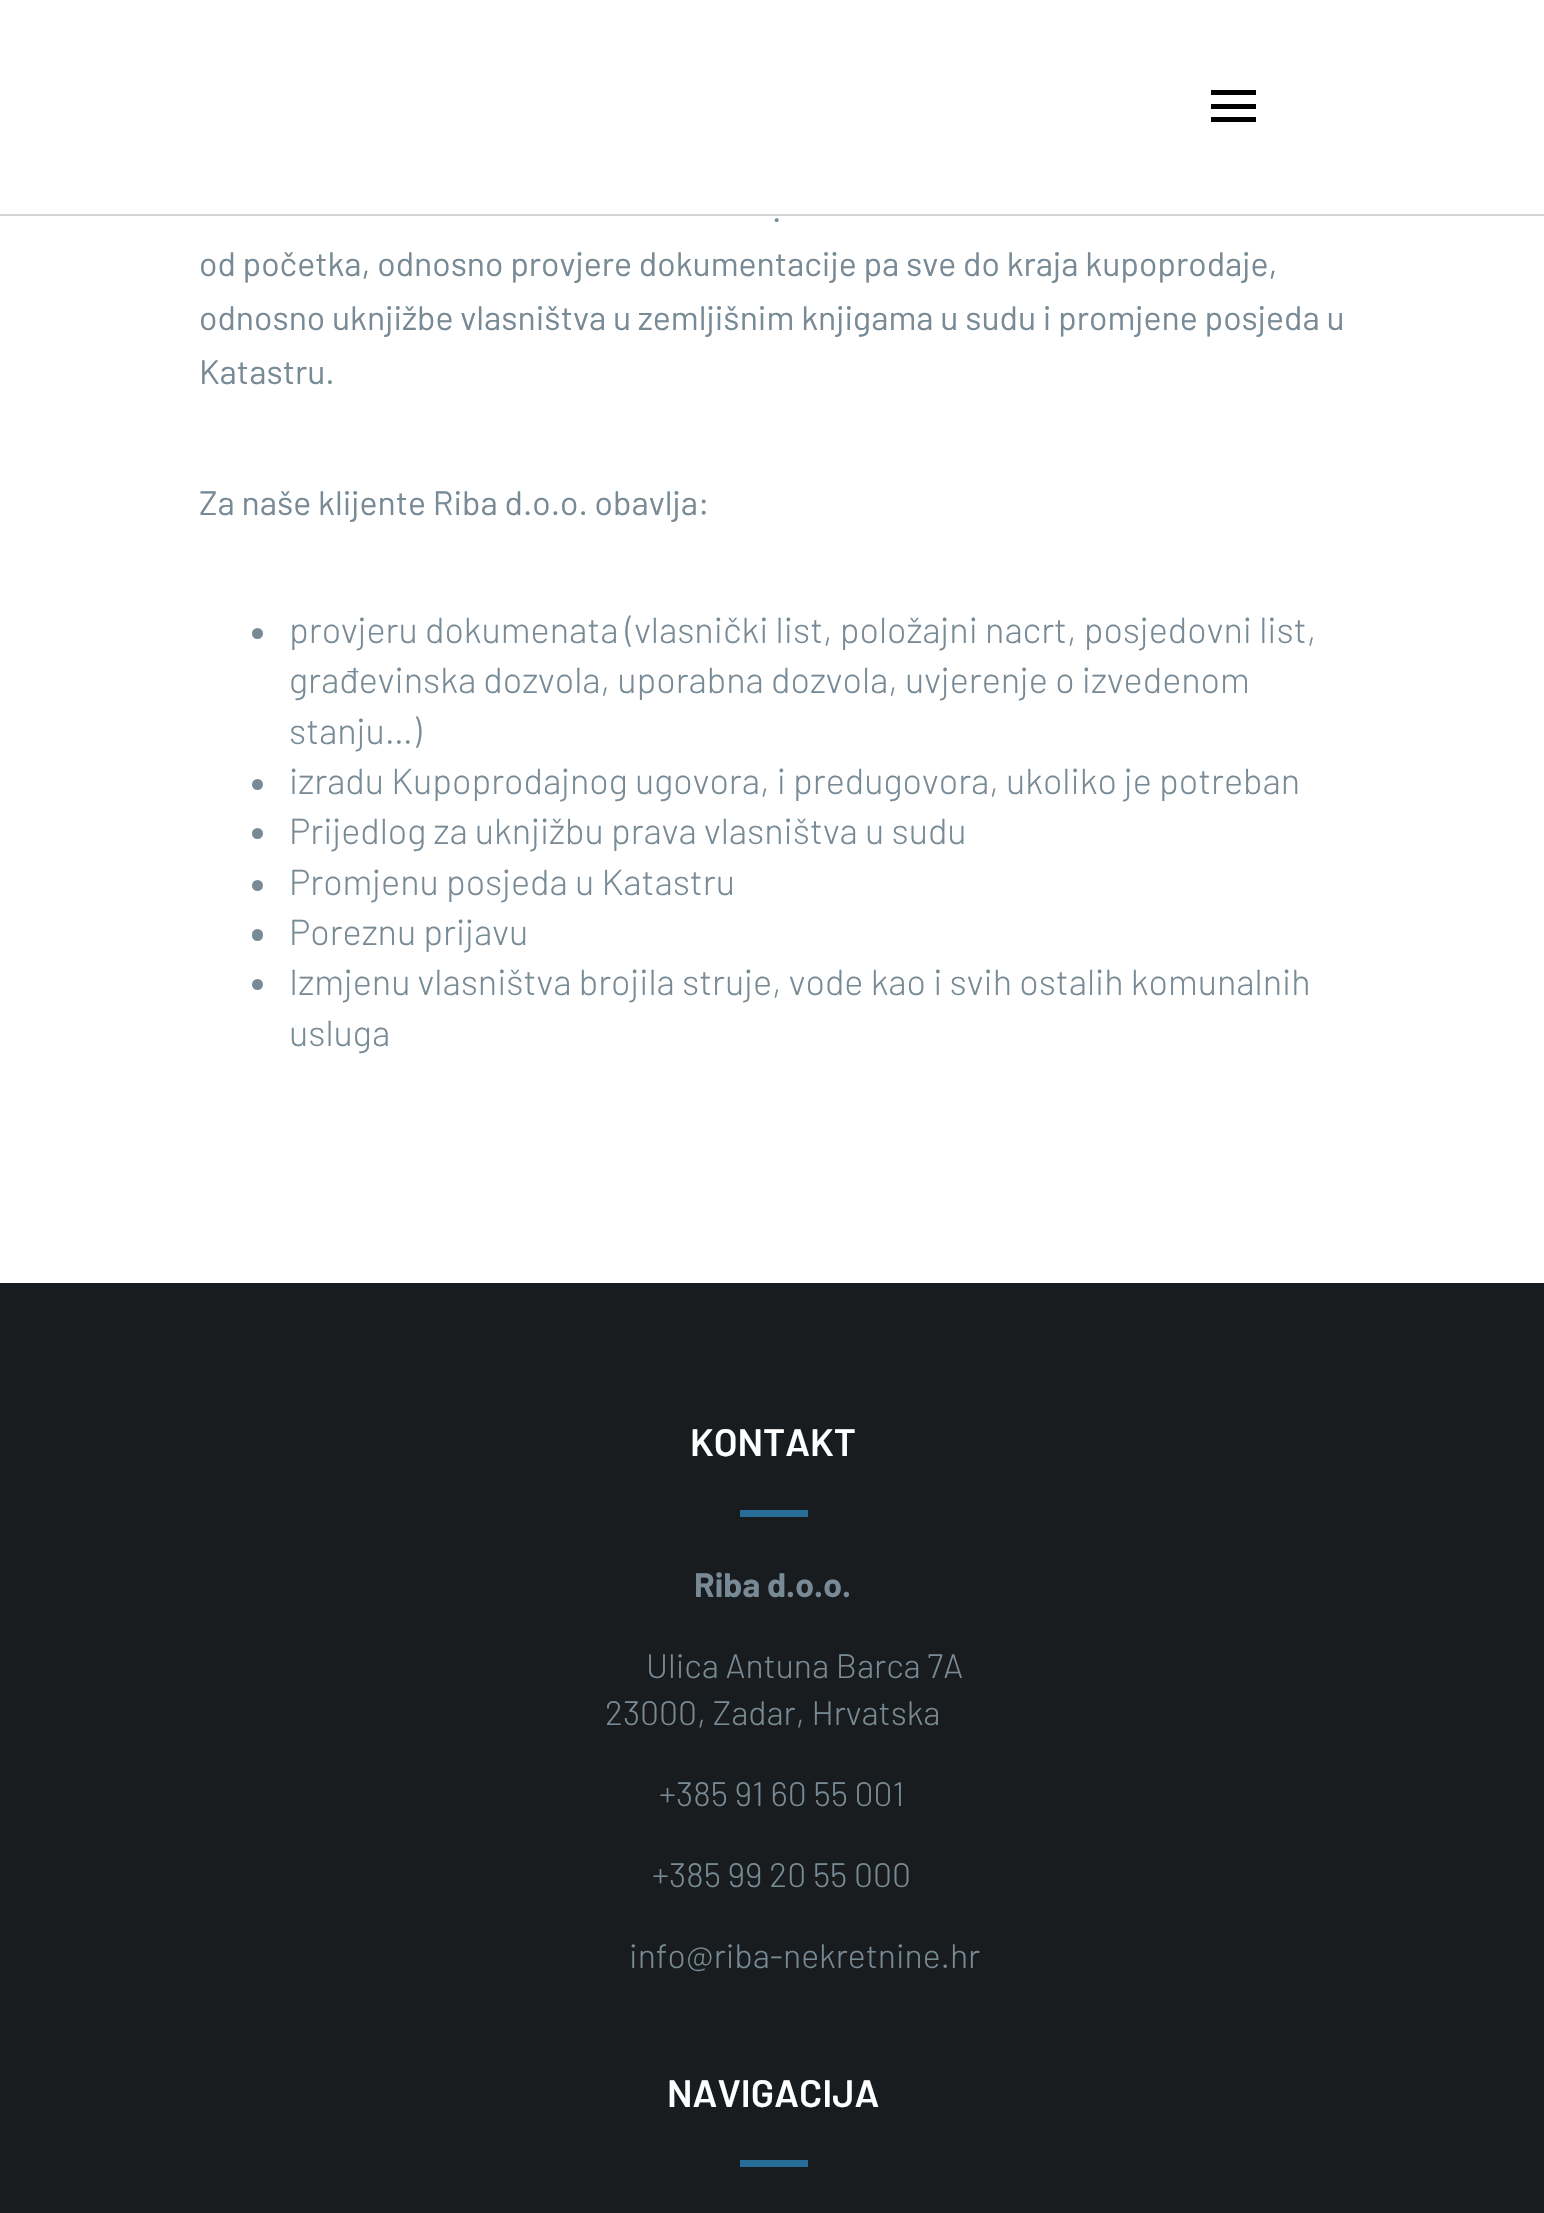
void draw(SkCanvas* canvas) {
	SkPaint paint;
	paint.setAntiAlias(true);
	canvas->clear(0xffffffff);
	paint.setColor(0xffd4d4d4);
	canvas->drawRect(SkRect::MakeXYWH(0, 214, 1544, 2), paint);
	paint.setColor(0xff000000);
	canvas->drawRect(SkRect::MakeXYWH(1211, 90, 45, 5), paint);
	canvas->drawRect(SkRect::MakeXYWH(1211, 104, 45, 5), paint);
	canvas->drawRect(SkRect::MakeXYWH(1211, 117, 45, 5), paint);
	SkFont f1(fontMgr->matchFamilyStyle("Barlow", SkFontStyle::Normal()), 33.75);
	f1.setSubpixel(true);
	paint.setColor(0xff788a95);
	canvas->drawString(".", 772, 222, f1, paint);
	canvas->drawString("od početka, odnosno provjere dokumentacije pa sve do kraja kupoprodaje,", 199, 276, f1, paint);
	canvas->drawString("odnosno uknjižbe vlasništva u zemljišnim knjigama u sudu i promjene posjeda u", 199, 330, f1, paint);
	canvas->drawString("Katastru.", 199, 384, f1, paint);
	canvas->drawString("Za naše klijente Riba d.o.o. obavlja:", 199, 515, f1, paint);
	canvas->drawCircle(257.5, 633.5, 5.5, paint);
	SkFont f2(fontMgr->matchFamilyStyle("Barlow", SkFontStyle(300, SkFontStyle::kNormal_Width, SkFontStyle::kUpright_Slant)), 36);
	f2.setSubpixel(true);
	canvas->drawString("provjeru dokumenata (vlasnički list, položajni nacrt, posjedovni list,", 289, 643, f2, paint);
	canvas->drawString("građevinska dozvola, uporabna dozvola, uvjerenje o izvedenom", 289, 693, f2, paint);
	canvas->drawString("stanju…)", 289, 744, f2, paint);
	canvas->drawCircle(257.5, 784.5, 5.5, paint);
	canvas->drawString("izradu Kupoprodajnog ugovora, i predugovora, ukoliko je potreban", 289, 794, f2, paint);
	canvas->drawCircle(257.5, 833.5, 5.5, paint);
	canvas->drawString("Prijedlog za uknjižbu prava vlasništva u sudu", 289, 844, f2, paint);
	canvas->drawCircle(257.5, 885.5, 5.5, paint);
	canvas->drawString("Promjenu posjeda u Katastru", 289, 895, f2, paint);
	canvas->drawRoundRect(SkRect::MakeXYWH(252, 929, 11, 12), 5.5, 5.5, paint);
	canvas->drawString("Poreznu prijavu", 289, 945, f2, paint);
	canvas->drawCircle(257.5, 984.5, 5.5, paint);
	canvas->drawString("Izmjenu vlasništva brojila struje, vode kao i svih ostalih komunalnih", 289, 995, f2, paint);
	canvas->drawString("usluga", 289, 1046, f2, paint);
	paint.setColor(0xff181c1f);
	canvas->drawRect(SkRect::MakeXYWH(0, 1283, 1544, 930), paint);
	SkFont f3(fontMgr->matchFamilyStyle("Barlow", SkFontStyle(600, SkFontStyle::kNormal_Width, SkFontStyle::kUpright_Slant)), 38.25);
	f3.setSubpixel(true);
	paint.setColor(0xffffffff);
	canvas->drawString("KONTAKT", 690, 1456, f3, paint);
	paint.setColor(0xff276d97);
	canvas->drawRect(SkRect::MakeXYWH(740, 1510, 68, 7), paint);
	SkFont f4(fontMgr->matchFamilyStyle("Barlow", SkFontStyle::Bold()), 33.75);
	f4.setSubpixel(true);
	paint.setColor(0xff788a95);
	canvas->drawString("Riba d.o.o.", 694, 1597, f4, paint);
	SkFont f5(fontMgr->matchFamilyStyle("Barlow", SkFontStyle(300, SkFontStyle::kNormal_Width, SkFontStyle::kUpright_Slant)), 33.75);
	f5.setSubpixel(true);
	canvas->drawString("Ulica Antuna Barca 7A", 646, 1678, f5, paint);
	canvas->drawString("23000, Zadar, Hrvatska", 605, 1725, f5, paint);
	canvas->drawString("+385 91 60 55 001", 659, 1806, f5, paint);
	canvas->drawString("+385 99 20 55 000", 652, 1887, f5, paint);
	canvas->drawString("info@riba-nekretnine.hr", 629, 1968, f5, paint);
	paint.setColor(0xffffffff);
	canvas->drawString("NAVIGACIJA", 667, 2107, f3, paint);
	paint.setColor(0xff276d97);
	canvas->drawRect(SkRect::MakeXYWH(740, 2160, 68, 7), paint);
}
